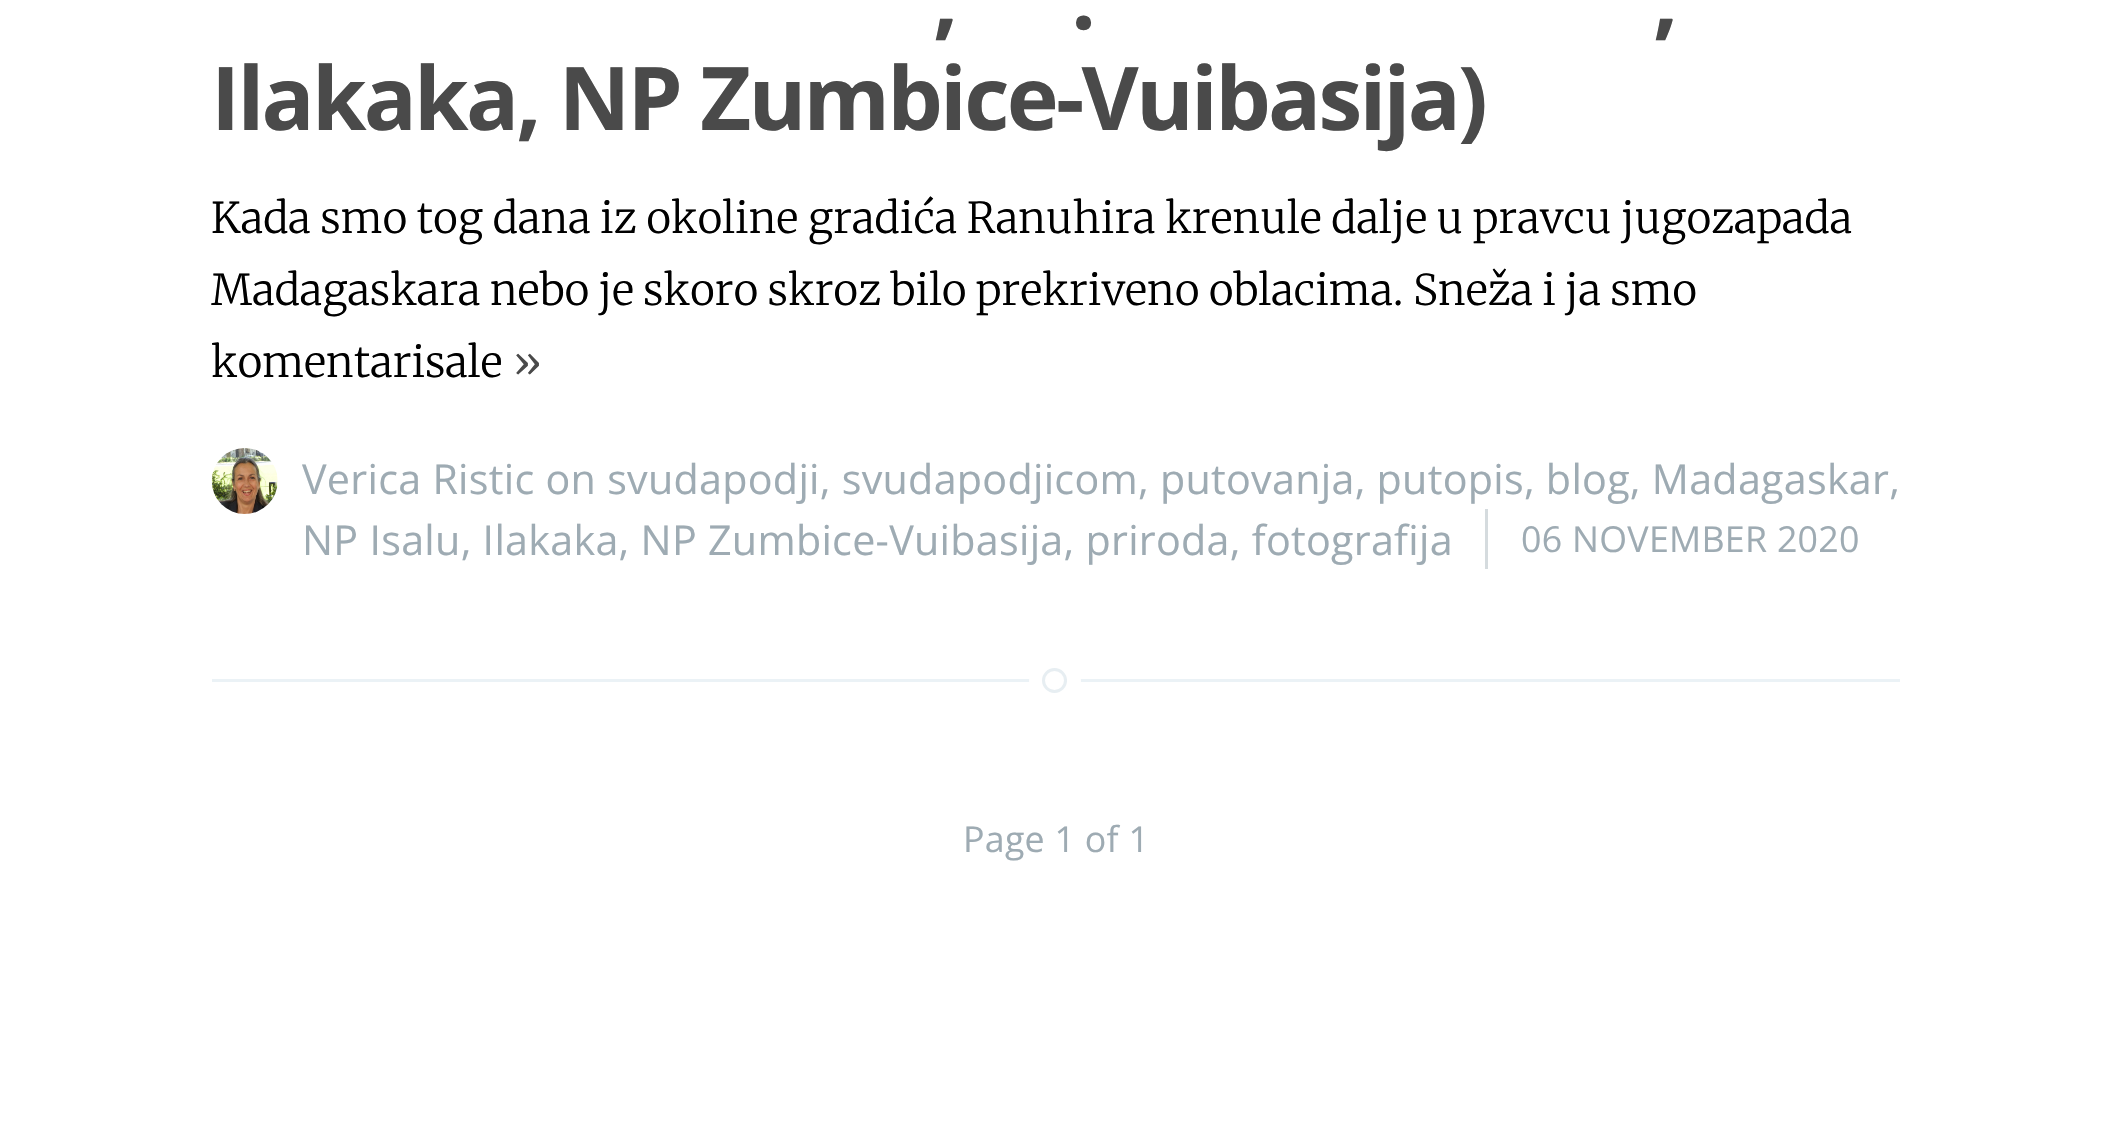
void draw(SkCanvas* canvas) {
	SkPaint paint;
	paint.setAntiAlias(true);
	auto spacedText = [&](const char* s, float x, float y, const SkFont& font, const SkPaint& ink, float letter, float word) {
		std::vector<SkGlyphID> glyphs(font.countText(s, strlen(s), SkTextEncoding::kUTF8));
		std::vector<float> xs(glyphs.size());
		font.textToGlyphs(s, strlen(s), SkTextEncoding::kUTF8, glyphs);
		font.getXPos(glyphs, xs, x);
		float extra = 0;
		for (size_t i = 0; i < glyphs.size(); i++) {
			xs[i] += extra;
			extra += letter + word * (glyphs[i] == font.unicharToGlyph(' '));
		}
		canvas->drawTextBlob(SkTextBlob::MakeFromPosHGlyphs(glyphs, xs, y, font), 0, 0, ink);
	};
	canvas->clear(0xffffffff);
	paint.setColor(0xffebf2f6);
	canvas->drawRect(SkRect::MakeXYWH(212, 679, 1688, 3), paint);
	SkFont f1(fontMgr->matchFamilyStyle("Open Sans", SkFontStyle::Bold()), 88);
	f1.setSubpixel(true);
	paint.setColor(0xff4a4a4a);
	spacedText(",", 933, 29, f1, paint, -2.75, 0);
	spacedText(".", 1071, 29, f1, paint, -2.75, 0);
	spacedText(",", 1653, 29, f1, paint, -2.75, 0);
	spacedText("Ilakaka, NP Zumbice-Vuibasija)", 211, 130, f1, paint, -2.75, 0);
	SkFont f2(fontMgr->matchFamilyStyle("Merriweather", SkFontStyle(300, SkFontStyle::kNormal_Width, SkFontStyle::kUpright_Slant)), 42.3);
	f2.setSubpixel(true);
	paint.setColor(0xff000000);
	spacedText("Kada smo tog dana iz okoline gradića Ranuhira krenule dalje u pravcu jugozapada", 211, 233, f2, paint, 0.28, -0.75);
	spacedText("Madagaskara nebo je skoro skroz bilo prekriveno oblacima. Sneža i ja smo", 211, 305, f2, paint, 0.28, -1);
	spacedText("komentarisale", 211, 377, f2, paint, 0.28, 0);
	paint.setColor(0xff4a4a4a);
	spacedText("»", 513, 377, f2, paint, 0.28, 0);
	canvas->drawImageRect(SkImages::DeferredFromEncodedData(SkData::MakeFromFileName("img1.png")), SkRect::MakeXYWH(211, 448, 67, 66), SkSamplingOptions());
	SkFont f3(fontMgr->matchFamilyStyle("Open Sans", SkFontStyle::Normal()), 41.25);
	f3.setSubpixel(true);
	paint.setColor(0xff9eabb3);
	spacedText("Verica Ristic on svudapodji, svudapodjicom, putovanja, putopis, blog, Madagaskar,", 302, 494, f3, paint, 0.28, 0);
	spacedText("NP Isalu, Ilakaka, NP Zumbice-Vuibasija, priroda, fotografija", 302, 555, f3, paint, 0.28, 0);
	paint.setColor(0xffd5dbde);
	canvas->drawRect(SkRect::MakeXYWH(1485, 509, 3, 60), paint);
	SkFont f4(fontMgr->matchFamilyStyle("Open Sans", SkFontStyle::Normal()), 35.75);
	f4.setSubpixel(true);
	paint.setColor(0xff9eabb3);
	spacedText("06 NOVEMBER 2020", 1521, 552, f4, paint, 0.28, 0);
	paint.setStroke(true);
	paint.setStrokeWidth(14);
	paint.setColor(0xffffffff);
	canvas->drawCircle(1055, 681, 19, paint);
	paint.setStroke(false);
	canvas->drawCircle(1054.5, 680.5, 11, paint);
	paint.setStroke(true);
	paint.setStrokeWidth(3);
	paint.setColor(0xffe7eef2);
	canvas->drawCircle(1054.5, 680.5, 11, paint);
	paint.setStroke(false);
	paint.setColor(0xff9eabb3);
	spacedText("Page 1 of 1", 963, 852, f4, paint, 0.28, 0);
}
